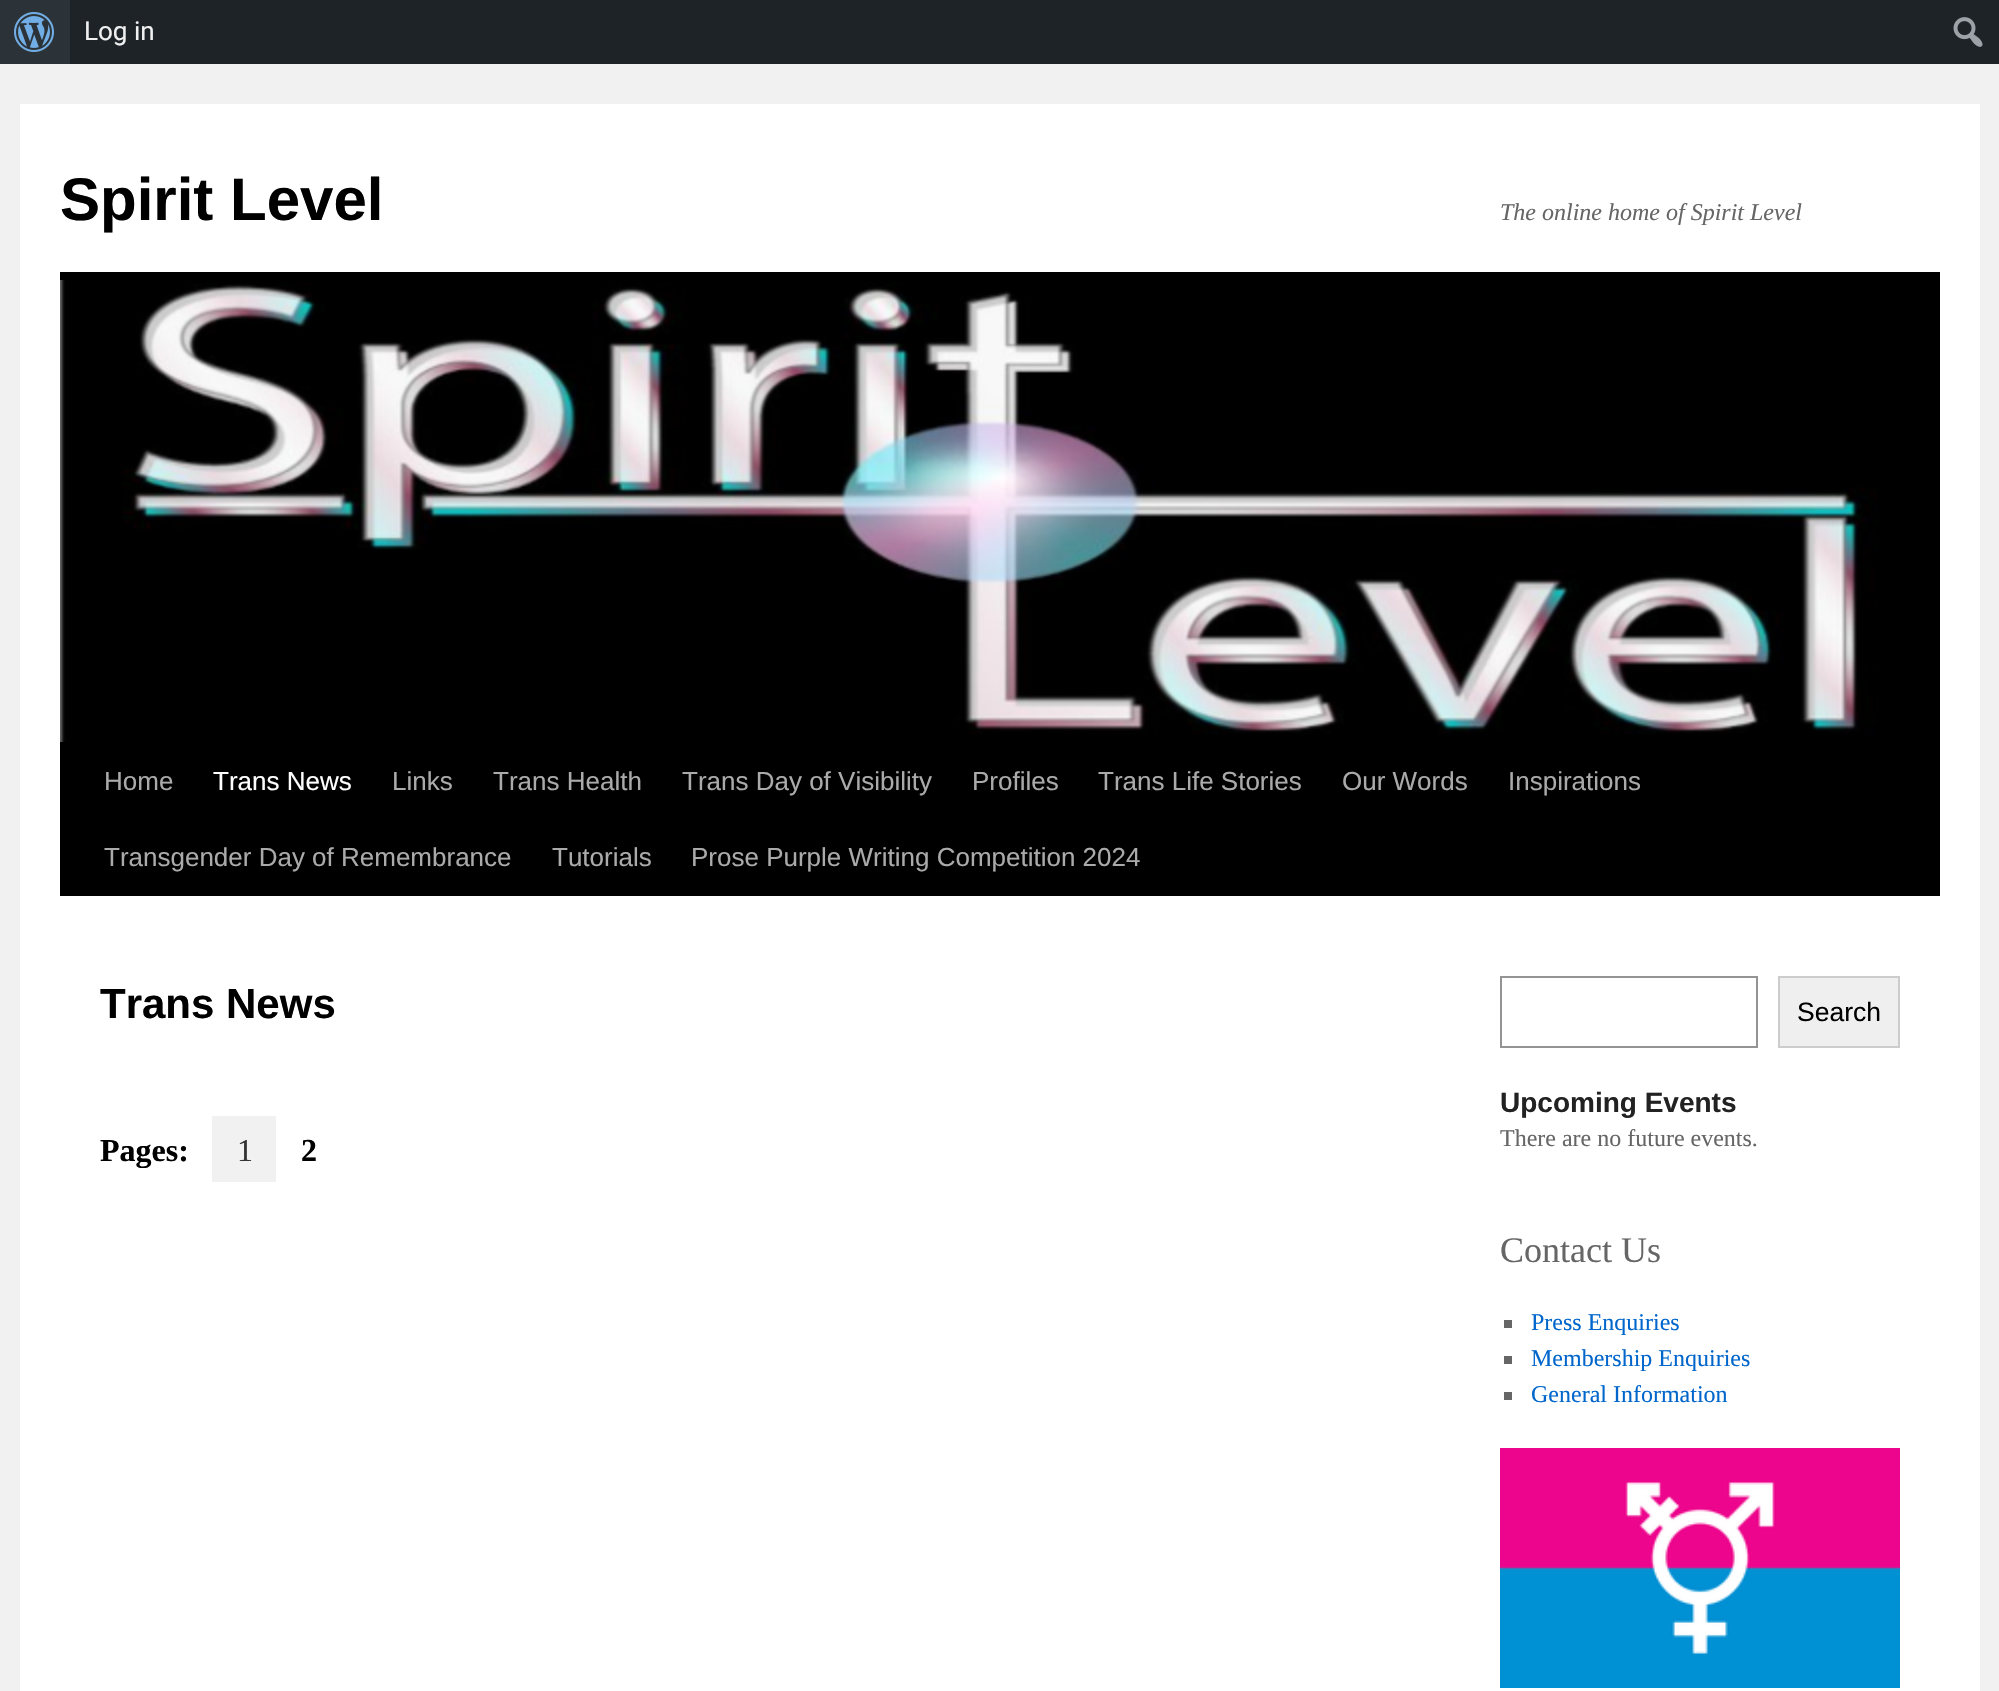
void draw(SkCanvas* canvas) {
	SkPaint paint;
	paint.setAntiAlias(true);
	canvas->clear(0xfff1f1f1);
	paint.setColor(0xff1d2327);
	canvas->drawRect(SkRect::MakeXYWH(70, 0, 1929, 64), paint);
	paint.setColor(0xff2c3338);
	canvas->drawRect(SkRect::MakeXYWH(0, 0, 70, 64), paint);
	canvas->drawImageRect(SkImages::DeferredFromEncodedData(SkData::MakeFromFileName("img1.png")), SkRect::MakeXYWH(14, 12, 40, 40), SkSamplingOptions());
	SkFont f1(fontMgr->matchFamilyStyle("Roboto", SkFontStyle::Normal()), 26);
	f1.setSubpixel(true);
	paint.setColor(0xfff0f0f1);
	canvas->drawString("Log in", 84, 40, f1, paint);
	canvas->drawImageRect(SkImages::DeferredFromEncodedData(SkData::MakeFromFileName("img2.png")), SkRect::MakeXYWH(1953, 17, 30, 30), SkSamplingOptions());
	paint.setColor(0xffffffff);
	canvas->drawRect(SkRect::MakeXYWH(20, 104, 1960, 1587), paint);
	SkFont f2(fontMgr->matchFamilyStyle("Liberation Sans", SkFontStyle::Bold()), 60);
	f2.setSubpixel(true);
	paint.setColor(0xff000000);
	canvas->drawString("Spirit Level", 60, 220, f2, paint);
	SkFont f3(fontMgr->matchFamilyStyle("Liberation Serif", SkFontStyle::Italic()), 24);
	f3.setSubpixel(true);
	paint.setColor(0xff666666);
	canvas->drawString("The online home of Spirit Level", 1500, 220, f3, paint);
	paint.setColor(0xff000000);
	canvas->drawRect(SkRect::MakeXYWH(60, 272, 1880, 8), paint);
	canvas->drawRect(SkRect::MakeXYWH(60, 742, 1880, 154), paint);
	canvas->drawImageRect(SkImages::DeferredFromEncodedData(SkData::MakeFromFileName("img3.png")), SkRect::MakeXYWH(60, 280, 1880, 462), SkSamplingOptions());
	SkFont f4(fontMgr->matchFamilyStyle("Liberation Sans", SkFontStyle::Normal()), 26);
	f4.setSubpixel(true);
	paint.setColor(0xffaaaaaa);
	canvas->drawString("Home", 104, 790, f4, paint);
	paint.setColor(0xffffffff);
	canvas->drawString("Trans News", 213, 790, f4, paint);
	paint.setColor(0xffaaaaaa);
	canvas->drawString("Links", 392, 790, f4, paint);
	canvas->drawString("Trans Health", 493, 790, f4, paint);
	canvas->drawString("Trans Day of Visibility", 682, 790, f4, paint);
	canvas->drawString("Profiles", 972, 790, f4, paint);
	canvas->drawString("Trans Life Stories", 1098, 790, f4, paint);
	canvas->drawString("Our Words", 1342, 790, f4, paint);
	canvas->drawString("Inspirations", 1508, 790, f4, paint);
	canvas->drawString("Transgender Day of Remembrance", 104, 866, f4, paint);
	canvas->drawString("Tutorials", 552, 866, f4, paint);
	canvas->drawString("Prose Purple Writing Competition 2024", 691, 866, f4, paint);
	SkFont f5(fontMgr->matchFamilyStyle("Liberation Sans", SkFontStyle::Bold()), 42);
	f5.setSubpixel(true);
	paint.setColor(0xff000000);
	canvas->drawString("Trans News", 100, 1018, f5, paint);
	SkFont f6(fontMgr->matchFamilyStyle("Liberation Serif", SkFontStyle::Bold()), 32);
	f6.setSubpixel(true);
	canvas->drawString("Pages:", 100, 1161, f6, paint);
	paint.setColor(0xfff1f1f1);
	canvas->drawRect(SkRect::MakeXYWH(212, 1116, 64, 66), paint);
	SkFont f7(fontMgr->matchFamilyStyle("Liberation Serif", SkFontStyle::Normal()), 32);
	f7.setSubpixel(true);
	paint.setColor(0xff333333);
	canvas->drawString("1", 237, 1161, f7, paint);
	paint.setColor(0xff000000);
	canvas->drawString("2", 301, 1161, f6, paint);
	paint.setStroke(true);
	paint.setStrokeWidth(2);
	paint.setColor(0xff949494);
	canvas->drawRect(SkRect::MakeXYWH(1501, 977, 256, 70), paint);
	paint.setStroke(false);
	paint.setColor(0xffefefef);
	canvas->drawRect(SkRect::MakeXYWH(1779, 977, 120, 70), paint);
	paint.setStroke(true);
	paint.setColor(0xffcccccc);
	canvas->drawRect(SkRect::MakeXYWH(1779, 977, 120, 70), paint);
	SkFont f8(fontMgr->matchFamilyStyle("Liberation Sans", SkFontStyle::Normal()), 26.5);
	f8.setSubpixel(true);
	paint.setStroke(false);
	paint.setColor(0xff000000);
	canvas->drawString("Search", 1797, 1021, f8, paint);
	SkFont f9(fontMgr->matchFamilyStyle("Liberation Sans", SkFontStyle::Bold()), 28);
	f9.setSubpixel(true);
	paint.setColor(0xff222222);
	canvas->drawString("Upcoming Events", 1500, 1112, f9, paint);
	SkFont f10(fontMgr->matchFamilyStyle("Liberation Serif", SkFontStyle::Normal()), 24);
	f10.setSubpixel(true);
	paint.setColor(0xff666666);
	canvas->drawString("There are no future events.", 1500, 1146, f10, paint);
	SkFont f11(fontMgr->matchFamilyStyle("Liberation Serif", SkFontStyle::Normal()), 36);
	f11.setSubpixel(true);
	canvas->drawString("Contact Us", 1500, 1262, f11, paint);
	canvas->drawRect(SkRect::MakeXYWH(1504, 1320, 8, 8), paint);
	paint.setColor(0xff0066cc);
	canvas->drawString("Press Enquiries", 1531, 1330, f10, paint);
	paint.setColor(0xff666666);
	canvas->drawRect(SkRect::MakeXYWH(1504, 1356, 8, 8), paint);
	paint.setColor(0xff0066cc);
	canvas->drawString("Membership Enquiries", 1531, 1366, f10, paint);
	paint.setColor(0xff666666);
	canvas->drawRect(SkRect::MakeXYWH(1504, 1392, 8, 8), paint);
	paint.setColor(0xff0066cc);
	canvas->drawString("General Information", 1531, 1402, f10, paint);
	canvas->drawImageRect(SkImages::DeferredFromEncodedData(SkData::MakeFromFileName("img4.png")), SkRect::MakeXYWH(1500, 1448, 400, 240), SkSamplingOptions());
}
